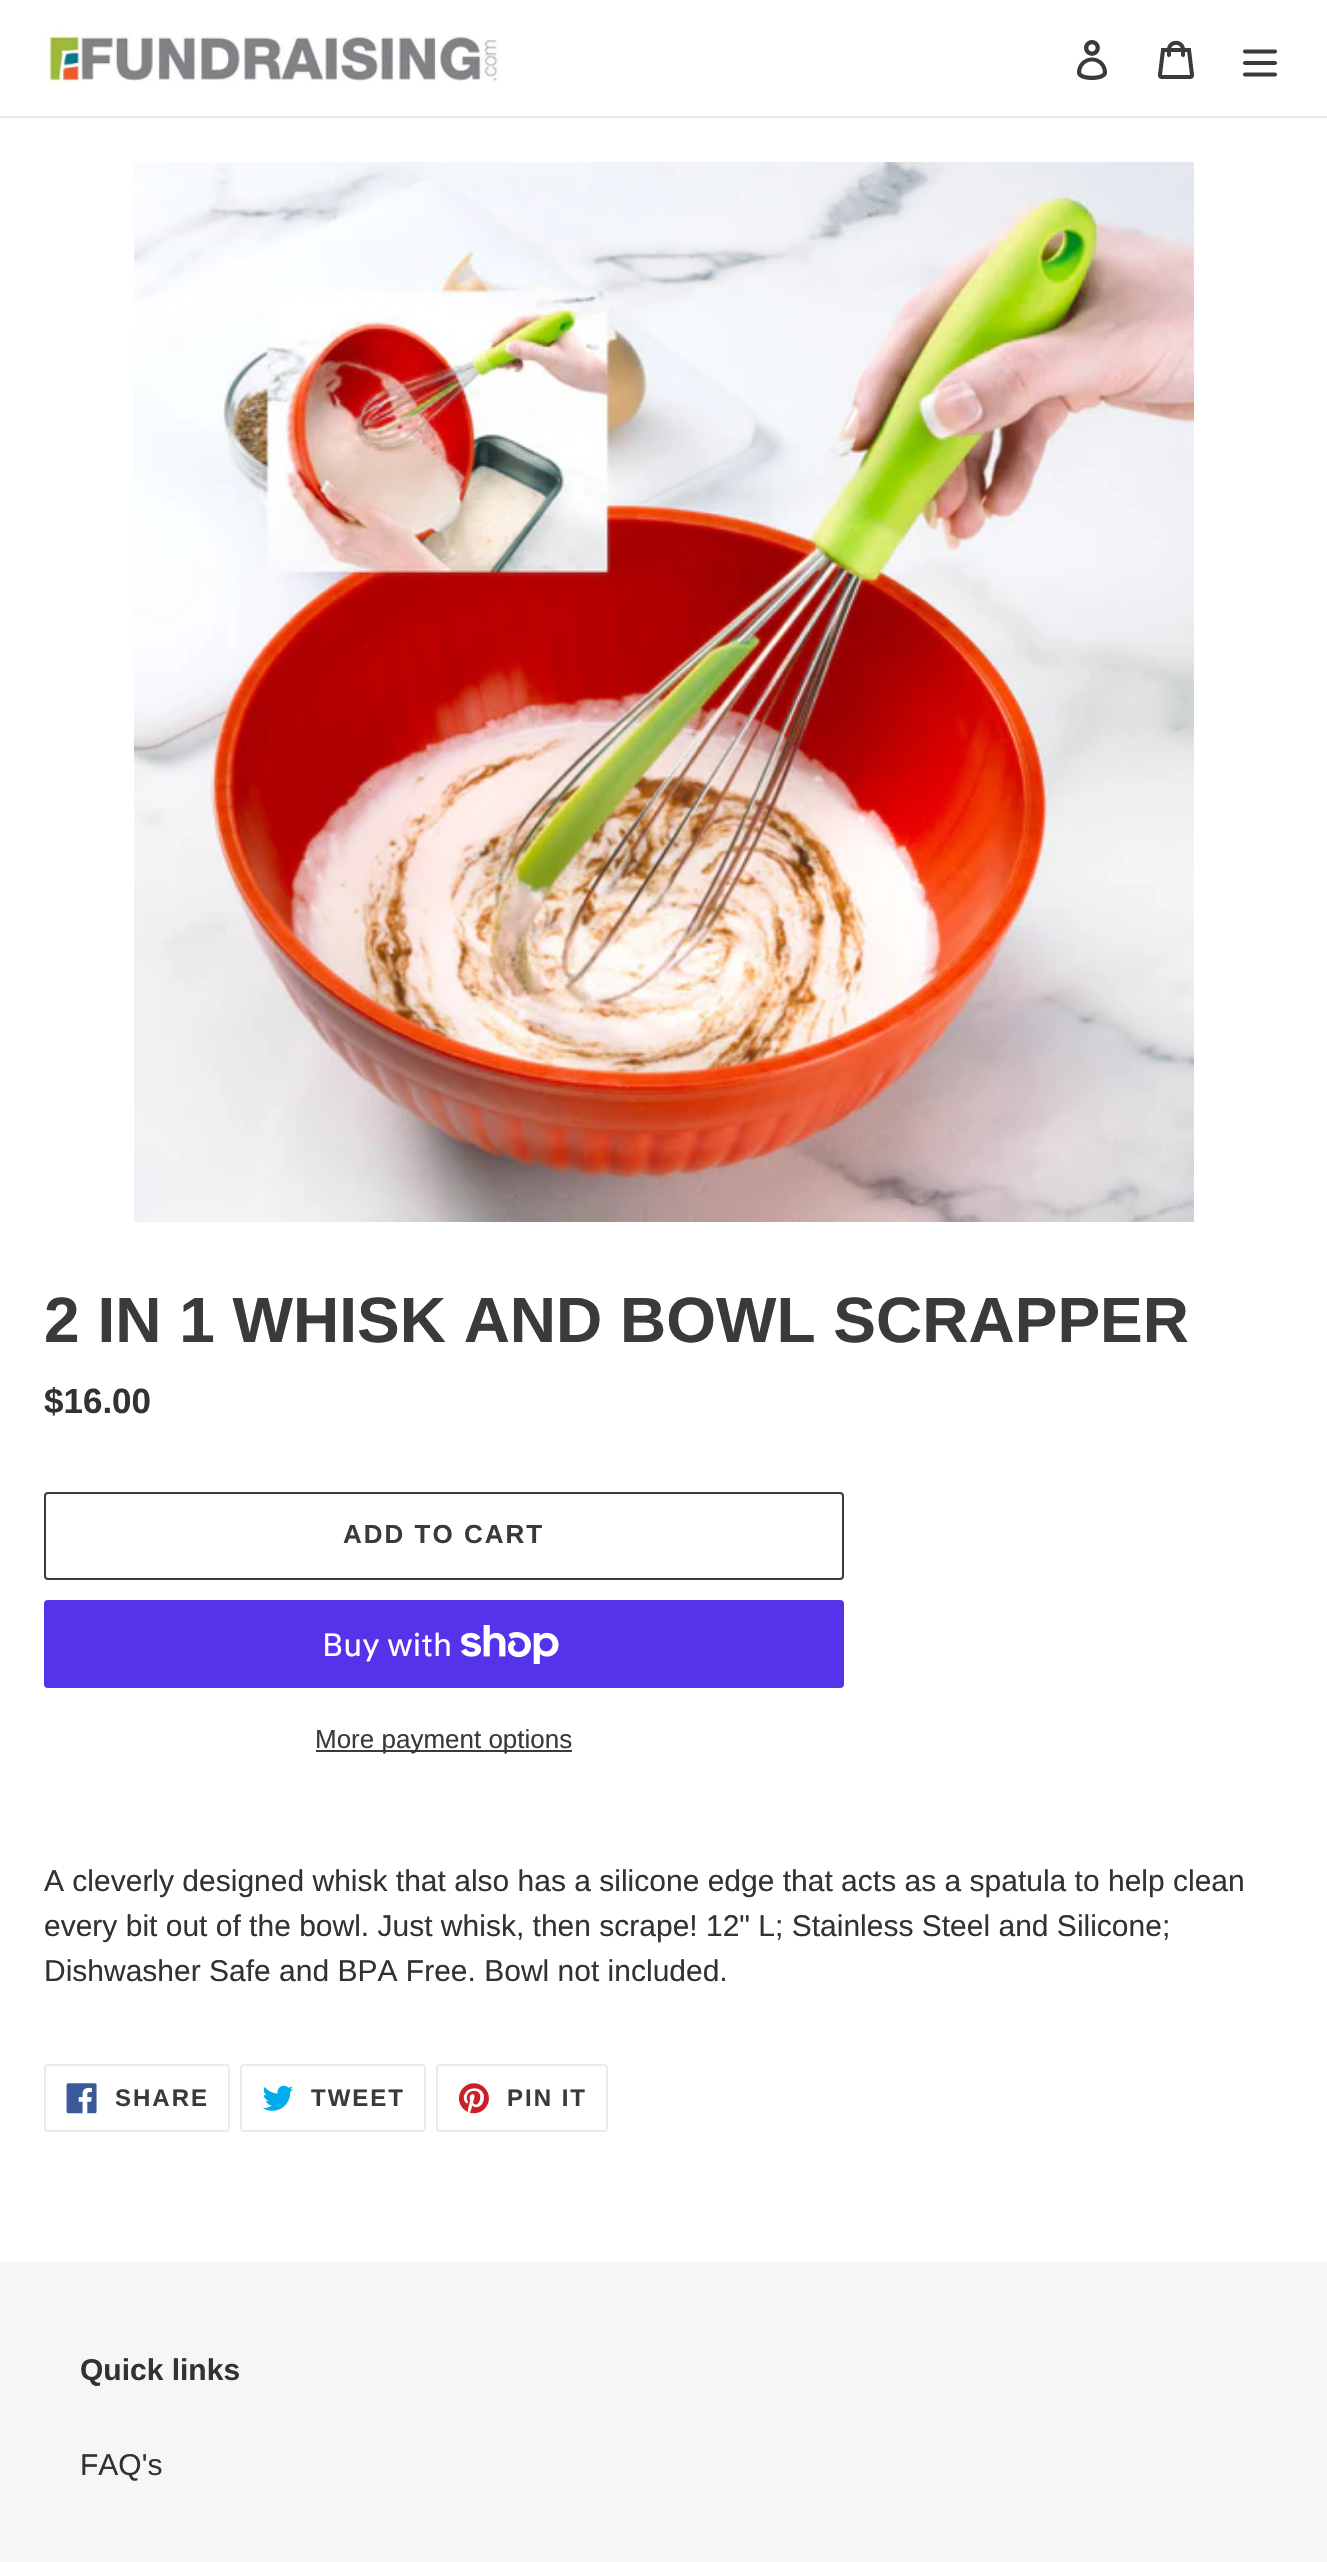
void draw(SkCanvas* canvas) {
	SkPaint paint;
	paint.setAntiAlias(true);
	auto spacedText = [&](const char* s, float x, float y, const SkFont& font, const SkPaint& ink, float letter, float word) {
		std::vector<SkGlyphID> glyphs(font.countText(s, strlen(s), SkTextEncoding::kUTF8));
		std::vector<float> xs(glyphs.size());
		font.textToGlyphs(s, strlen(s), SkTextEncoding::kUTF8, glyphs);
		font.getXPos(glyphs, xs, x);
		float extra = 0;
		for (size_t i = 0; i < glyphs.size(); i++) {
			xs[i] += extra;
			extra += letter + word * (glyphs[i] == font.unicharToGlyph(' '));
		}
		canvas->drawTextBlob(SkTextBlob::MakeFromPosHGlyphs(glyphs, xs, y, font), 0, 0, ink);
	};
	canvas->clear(0xffffffff);
	paint.setColor(0xffebebeb);
	canvas->drawRect(SkRect::MakeXYWH(0, 116, 1327, 2), paint);
	canvas->drawImageRect(SkImages::DeferredFromEncodedData(SkData::MakeFromFileName("img1.png")), SkRect::MakeXYWH(44, 30, 455, 54), SkSamplingOptions());
	canvas->drawImageRect(SkImages::DeferredFromEncodedData(SkData::MakeFromFileName("img2.png")), SkRect::MakeXYWH(1077, 40, 31, 40), SkSamplingOptions());
	canvas->drawImageRect(SkImages::DeferredFromEncodedData(SkData::MakeFromFileName("img3.png")), SkRect::MakeXYWH(1158, 40, 36, 39), SkSamplingOptions());
	canvas->drawImageRect(SkImages::DeferredFromEncodedData(SkData::MakeFromFileName("img4.png")), SkRect::MakeXYWH(1243, 49, 34, 28), SkSamplingOptions());
	canvas->drawImageRect(SkImages::DeferredFromEncodedData(SkData::MakeFromFileName("img5.png")), SkRect::MakeXYWH(134, 162, 1060, 1060), SkSamplingOptions());
	SkFont f1(fontMgr->matchFamilyStyle("Liberation Sans", SkFontStyle::Bold()), 64);
	f1.setSubpixel(true);
	paint.setColor(0xff3a3a3a);
	canvas->drawString("2 IN 1 WHISK AND BOWL SCRAPPER", 44, 1342, f1, paint);
	SkFont f2(fontMgr->matchFamilyStyle("Liberation Sans", SkFontStyle::Bold()), 35);
	f2.setSubpixel(true);
	paint.setColor(0xff333232);
	canvas->drawString("$16.00", 44, 1413, f2, paint);
	paint.setStroke(true);
	paint.setStrokeWidth(2);
	paint.setColor(0xff3a3a3a);
	canvas->drawRoundRect(SkRect::MakeXYWH(45, 1493, 798, 86), 3, 3, paint);
	SkFont f3(fontMgr->matchFamilyStyle("Liberation Sans", SkFontStyle::Bold()), 26);
	f3.setSubpixel(true);
	paint.setStroke(false);
	spacedText("ADD TO CART", 343, 1543, f3, paint, 2, 0);
	paint.setColor(0xff5433eb);
	canvas->drawRoundRect(SkRect::MakeXYWH(44, 1600, 800, 88), 4, 4, paint);
	SkFont f4(fontMgr->matchFamilyStyle("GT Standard", SkFontStyle::Normal()), 32);
	f4.setSubpixel(true);
	paint.setColor(0xffffffff);
	canvas->drawString("Buy with", 322, 1656, f4, paint);
	canvas->drawImageRect(SkImages::DeferredFromEncodedData(SkData::MakeFromFileName("img6.png")), SkRect::MakeXYWH(461, 1625, 98, 39), SkSamplingOptions());
	paint.setColor(0xff3a3a3a);
	canvas->drawRect(SkRect::MakeXYWH(316, 1750, 256, 2), paint);
	SkFont f5(fontMgr->matchFamilyStyle("Liberation Sans", SkFontStyle::Normal()), 26);
	f5.setSubpixel(true);
	canvas->drawString("More payment options", 315, 1748, f5, paint);
	SkFont f6(fontMgr->matchFamilyStyle("Liberation Sans", SkFontStyle::Normal()), 30);
	f6.setSubpixel(true);
	paint.setColor(0xff333232);
	canvas->drawString("A cleverly designed whisk that also has a silicone edge that acts as a spatula to help clean", 44, 1891, f6, paint);
	canvas->drawString("every bit out of the bowl. Just whisk, then scrape! 12\" L; Stainless Steel and Silicone;", 44, 1936, f6, paint);
	canvas->drawString("Dishwasher Safe and BPA Free. Bowl not included.", 44, 1981, f6, paint);
	paint.setStroke(true);
	paint.setColor(0xffebebeb);
	canvas->drawRoundRect(SkRect::MakeXYWH(45, 2065, 184, 66), 3, 3, paint);
	canvas->drawImageRect(SkImages::DeferredFromEncodedData(SkData::MakeFromFileName("img7.png")), SkRect::MakeXYWH(66, 2083, 31, 31), SkSamplingOptions());
	SkFont f7(fontMgr->matchFamilyStyle("Liberation Sans", SkFontStyle::Bold()), 24);
	f7.setSubpixel(true);
	paint.setStroke(false);
	paint.setColor(0xff3a3a3a);
	spacedText("SHARE", 115, 2106, f7, paint, 2, 0);
	paint.setStroke(true);
	paint.setColor(0xffebebeb);
	canvas->drawRoundRect(SkRect::MakeXYWH(241, 2065, 184, 66), 3, 3, paint);
	canvas->drawImageRect(SkImages::DeferredFromEncodedData(SkData::MakeFromFileName("img8.png")), SkRect::MakeXYWH(262, 2085, 32, 26), SkSamplingOptions());
	paint.setStroke(false);
	paint.setColor(0xff3a3a3a);
	spacedText("TWEET", 311, 2106, f7, paint, 2, 0);
	paint.setStroke(true);
	paint.setColor(0xffebebeb);
	canvas->drawRoundRect(SkRect::MakeXYWH(437, 2065, 170, 66), 3, 3, paint);
	canvas->drawImageRect(SkImages::DeferredFromEncodedData(SkData::MakeFromFileName("img9.png")), SkRect::MakeXYWH(458, 2083, 31, 31), SkSamplingOptions());
	paint.setStroke(false);
	paint.setColor(0xff3a3a3a);
	spacedText("PIN IT", 507, 2106, f7, paint, 2, 0);
	paint.setColor(0xfff6f6f6);
	canvas->drawRect(SkRect::MakeXYWH(0, 2262, 1327, 300), paint);
	SkFont f8(fontMgr->matchFamilyStyle("Liberation Sans", SkFontStyle::Bold()), 30);
	f8.setSubpixel(true);
	paint.setColor(0xff333232);
	canvas->drawString("Quick links", 80, 2380, f8, paint);
	canvas->drawString("FAQ's", 80, 2475, f6, paint);
}
